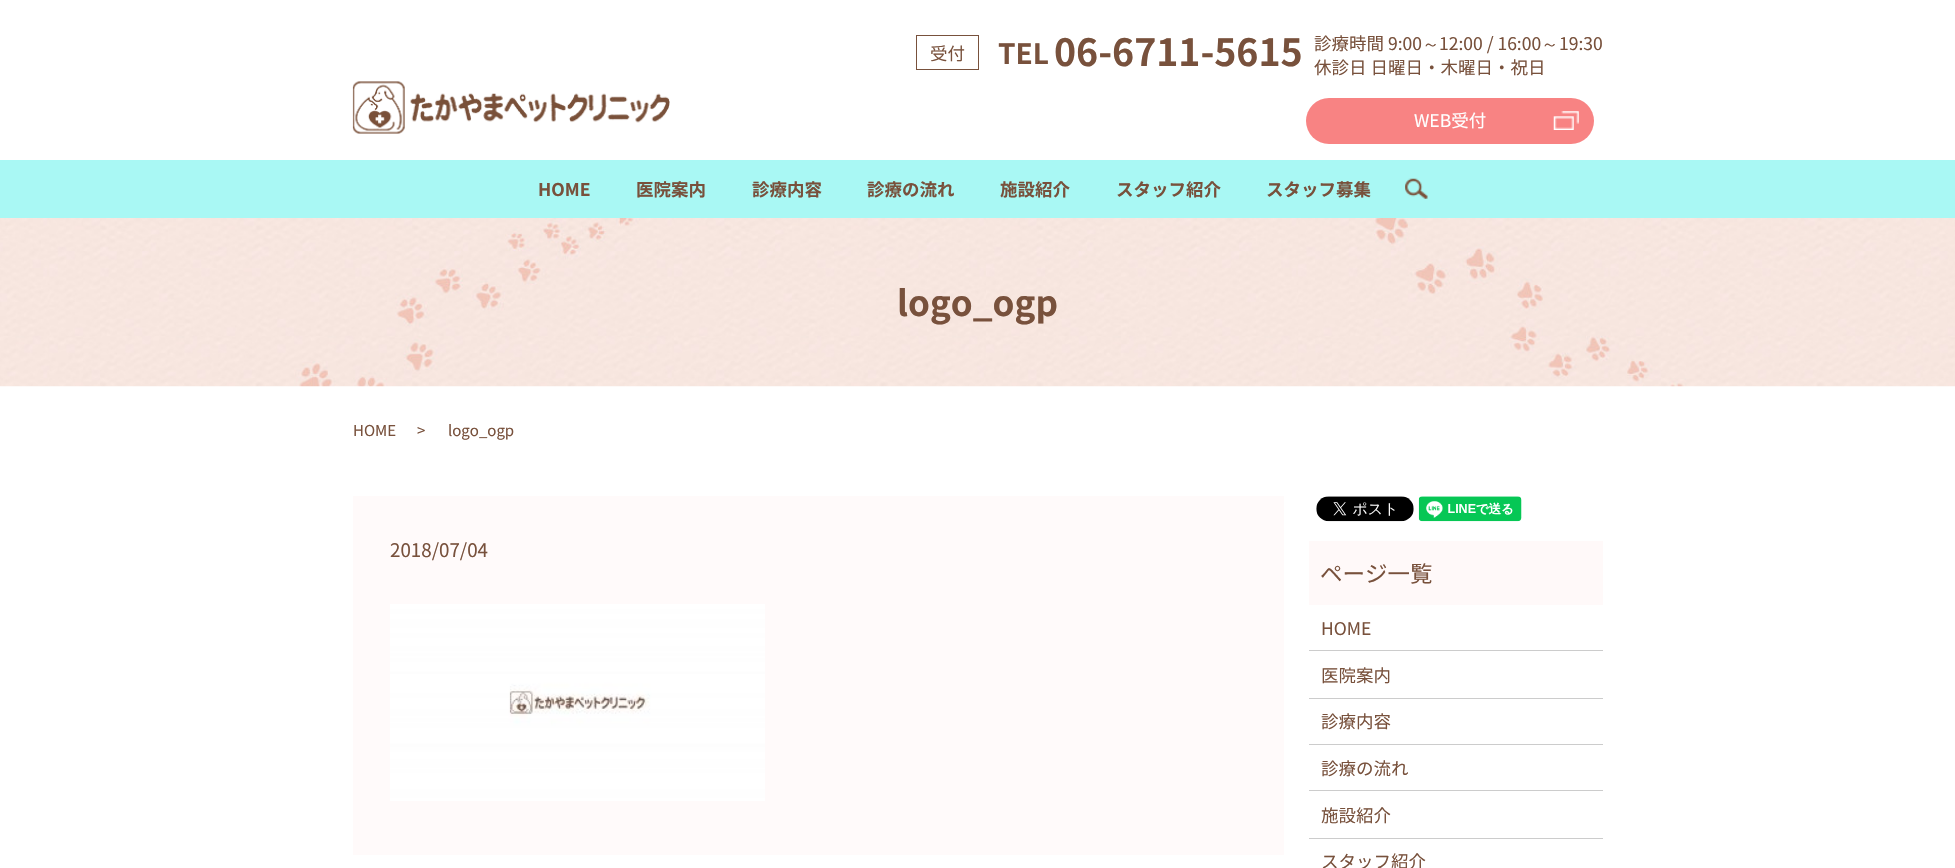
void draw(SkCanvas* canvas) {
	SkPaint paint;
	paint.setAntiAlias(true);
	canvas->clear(0xffffffff);
	paint.setStroke(true);
	paint.setStrokeWidth(1);
	paint.setColor(0xff78513c);
	canvas->drawRect(SkRect::MakeXYWH(916.5, 35.5, 62, 34), paint);
	SkFont f1(fontMgr->matchFamilyStyle("Noto Sans JP", SkFontStyle::Normal()), 17.5);
	f1.setSubpixel(true);
	paint.setStroke(false);
	canvas->drawString("受付", 930, 60, f1, paint);
	SkFont f2(fontMgr->matchFamilyStyle("Noto Sans JP", SkFontStyle::Bold()), 28);
	f2.setSubpixel(true);
	canvas->drawString("TEL", 998, 64, f2, paint);
	SkFont f3(fontMgr->matchFamilyStyle("Noto Sans JP", SkFontStyle::Bold()), 37.5);
	f3.setSubpixel(true);
	canvas->drawString("06-6711-5615", 1054, 66, f3, paint);
	canvas->drawString("診療時間 9:00", 1314, 50, f1, paint);
	SkFont f4(fontMgr->matchFamilyStyle("WenQuanYi Zen Hei", SkFontStyle(500, SkFontStyle::kNormal_Width, SkFontStyle::kUpright_Slant)), 17.5);
	f4.setSubpixel(true);
	canvas->drawString("～", 1422, 50, f4, paint);
	canvas->drawString("12:00 / 16:00", 1439, 50, f1, paint);
	canvas->drawString("～", 1541, 50, f4, paint);
	canvas->drawString("19:30", 1559, 50, f1, paint);
	canvas->drawString("休診日 日曜日・木曜日・祝日", 1314, 74, f1, paint);
	paint.setColor(0xfff88383);
	canvas->drawRoundRect(SkRect::MakeXYWH(1306, 98, 288, 46), 23, 23, paint);
	paint.setColor(0xffffffff);
	canvas->drawString("WEB受付", 1414, 127, f1, paint);
	canvas->drawImageRect(SkImages::DeferredFromEncodedData(SkData::MakeFromFileName("img1.png")), SkRect::MakeXYWH(1553, 111, 26, 19), SkSamplingOptions());
	canvas->drawImageRect(SkImages::DeferredFromEncodedData(SkData::MakeFromFileName("img2.png")), SkRect::MakeXYWH(352, 81, 318, 53), SkSamplingOptions());
	paint.setColor(0xffa9f8f4);
	canvas->drawRect(SkRect::MakeXYWH(0, 160, 1955, 58), paint);
	SkFont f5(fontMgr->matchFamilyStyle("Noto Sans JP", SkFontStyle::Bold()), 17.5);
	f5.setSubpixel(true);
	paint.setColor(0xff78513c);
	canvas->drawString("HOME", 538, 196, f5, paint);
	canvas->drawString("医院案内", 636, 196, f5, paint);
	canvas->drawString("診療内容", 752, 196, f5, paint);
	canvas->drawString("診療の流れ", 867, 196, f5, paint);
	canvas->drawString("施設紹介", 1000, 196, f5, paint);
	canvas->drawString("スタッフ紹介", 1116, 196, f5, paint);
	canvas->drawString("スタッフ募集", 1266, 196, f5, paint);
	canvas->drawImageRect(SkImages::DeferredFromEncodedData(SkData::MakeFromFileName("img3.png")), SkRect::MakeXYWH(1405, 178, 23, 21), SkSamplingOptions());
	canvas->drawImageRect(SkImages::DeferredFromEncodedData(SkData::MakeFromFileName("img4.png")), SkRect::MakeXYWH(0, 218, 1955, 169), SkSamplingOptions());
	SkFont f6(fontMgr->matchFamilyStyle("Noto Sans JP", SkFontStyle::Bold()), 35);
	f6.setSubpixel(true);
	canvas->drawString("logo_ogp", 897, 316, f6, paint);
	SkFont f7(fontMgr->matchFamilyStyle("Noto Sans JP", SkFontStyle::Normal()), 15);
	f7.setSubpixel(true);
	canvas->drawString("HOME", 353, 436, f7, paint);
	canvas->drawString(">", 417, 436, f7, paint);
	canvas->drawString("logo_ogp", 448, 436, f7, paint);
	paint.setColor(0xfffffafa);
	canvas->drawRect(SkRect::MakeXYWH(353, 496, 931, 359), paint);
	SkFont f8(fontMgr->matchFamilyStyle("Noto Sans JP", SkFontStyle::Normal()), 18.75);
	f8.setSubpixel(true);
	paint.setColor(0xff78513c);
	canvas->drawString("2018/07/04", 390, 557, f8, paint);
	canvas->drawImageRect(SkImages::DeferredFromEncodedData(SkData::MakeFromFileName("img5.png")), SkRect::MakeXYWH(390, 604, 375, 197), SkSamplingOptions());
	canvas->drawImageRect(SkImages::DeferredFromEncodedData(SkData::MakeFromFileName("img6.png")), SkRect::MakeXYWH(1316, 496, 98, 26), SkSamplingOptions());
	canvas->drawImageRect(SkImages::DeferredFromEncodedData(SkData::MakeFromFileName("img7.png")), SkRect::MakeXYWH(1418, 496, 104, 26), SkSamplingOptions());
	paint.setColor(0xfffff9f9);
	canvas->drawRect(SkRect::MakeXYWH(1309, 541, 294, 64), paint);
	SkFont f9(fontMgr->matchFamilyStyle("Noto Sans JP", SkFontStyle::Normal()), 22.5);
	f9.setSubpixel(true);
	paint.setColor(0xff78513c);
	canvas->drawString("ページ一覧", 1320, 582, f9, paint);
	paint.setColor(0xffcccccc);
	canvas->drawRect(SkRect::MakeXYWH(1309, 650, 294, 1), paint);
	paint.setColor(0xff78513c);
	canvas->drawString("HOME", 1321, 635, f1, paint);
	paint.setColor(0xffcccccc);
	canvas->drawRect(SkRect::MakeXYWH(1309, 698, 294, 1), paint);
	paint.setColor(0xff78513c);
	canvas->drawString("医院案内", 1321, 682, f1, paint);
	paint.setColor(0xffcccccc);
	canvas->drawRect(SkRect::MakeXYWH(1309, 744, 294, 1), paint);
	paint.setColor(0xff78513c);
	canvas->drawString("診療内容", 1321, 728, f1, paint);
	paint.setColor(0xffcccccc);
	canvas->drawRect(SkRect::MakeXYWH(1309, 790, 294, 1), paint);
	paint.setColor(0xff78513c);
	canvas->drawString("診療の流れ", 1321, 775, f1, paint);
	paint.setColor(0xffcccccc);
	canvas->drawRect(SkRect::MakeXYWH(1309, 838, 294, 1), paint);
	paint.setColor(0xff78513c);
	canvas->drawString("施設紹介", 1321, 822, f1, paint);
	canvas->drawString("スタッフ紹介", 1321, 868, f1, paint);
}
